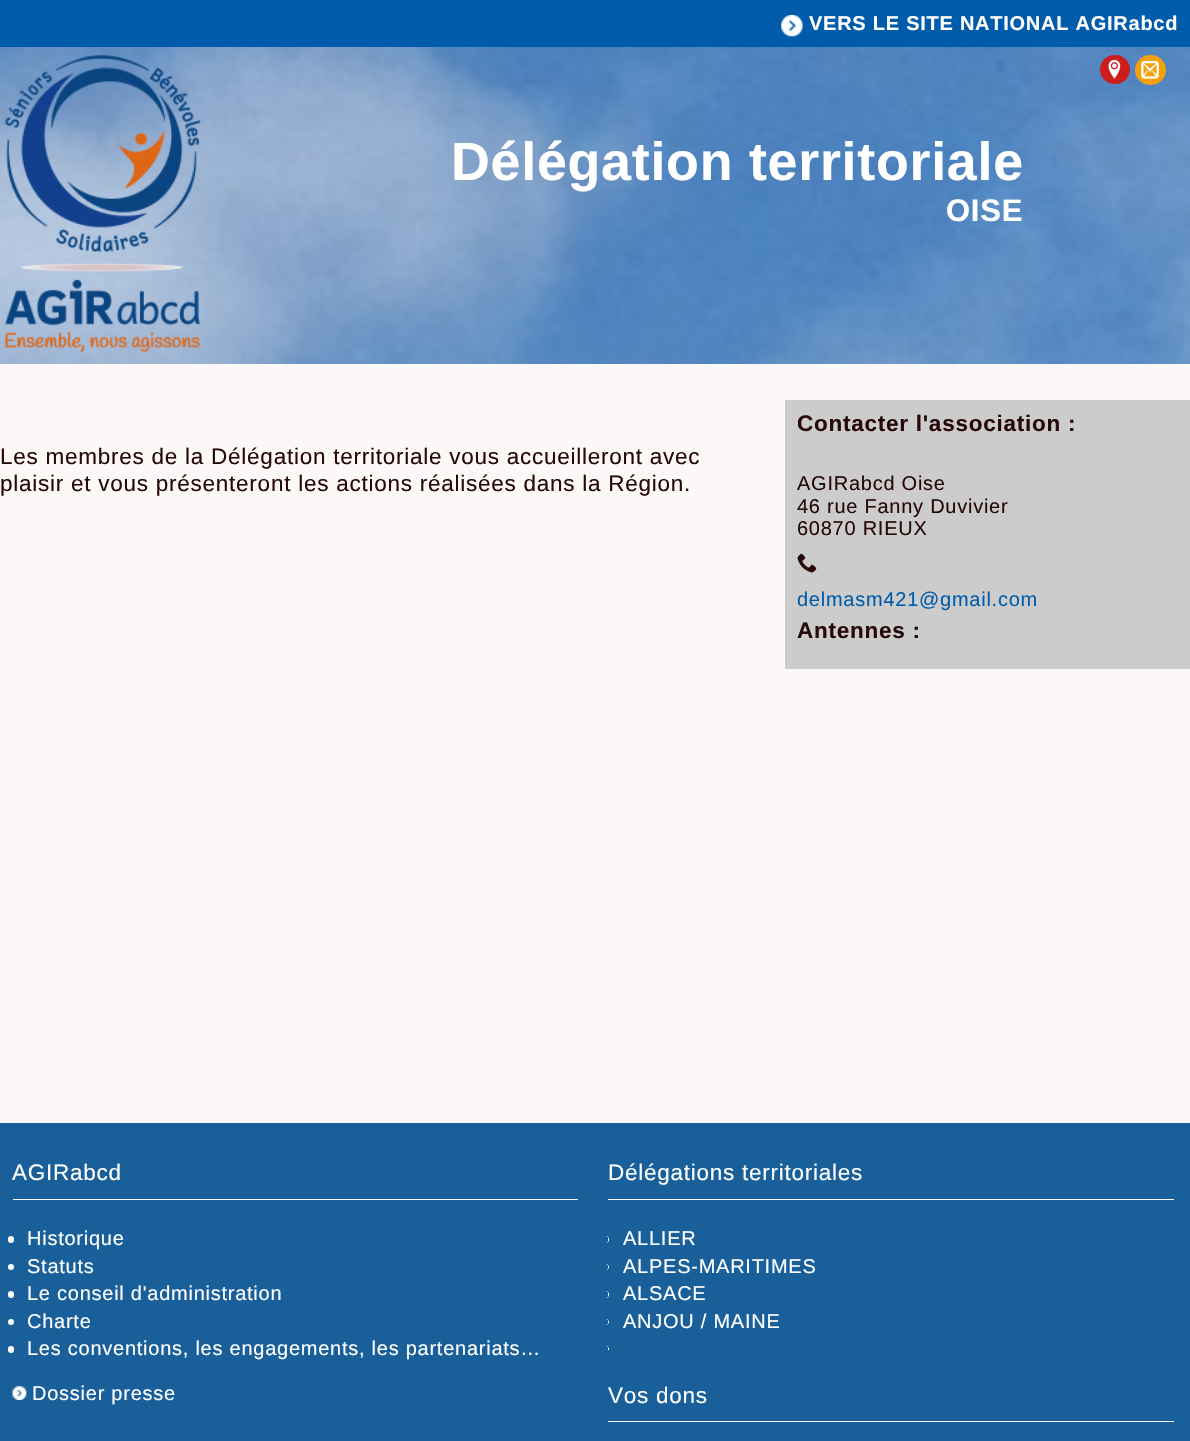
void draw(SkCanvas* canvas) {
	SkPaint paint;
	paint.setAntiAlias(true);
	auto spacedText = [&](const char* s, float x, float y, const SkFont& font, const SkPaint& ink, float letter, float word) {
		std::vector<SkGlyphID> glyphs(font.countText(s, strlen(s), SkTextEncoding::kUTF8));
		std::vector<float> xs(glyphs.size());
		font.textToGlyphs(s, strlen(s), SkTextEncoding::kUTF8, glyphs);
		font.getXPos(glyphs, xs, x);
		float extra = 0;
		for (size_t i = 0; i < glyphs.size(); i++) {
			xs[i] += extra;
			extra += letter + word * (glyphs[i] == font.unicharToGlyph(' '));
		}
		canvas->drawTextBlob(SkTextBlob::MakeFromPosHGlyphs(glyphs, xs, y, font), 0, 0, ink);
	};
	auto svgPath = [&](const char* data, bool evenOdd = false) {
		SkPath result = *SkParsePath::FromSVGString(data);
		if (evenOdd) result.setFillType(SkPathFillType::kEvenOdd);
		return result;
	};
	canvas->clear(0xfffbf8f7);
	paint.setColor(0xff005baa);
	canvas->drawRect(SkRect::MakeXYWH(0, 0, 1190, 47), paint);
	canvas->drawImageRect(SkImages::DeferredFromEncodedData(SkData::MakeFromFileName("img1.png")), SkRect::MakeXYWH(781, 15, 22, 22), SkSamplingOptions());
	SkFont f1(fontMgr->matchFamilyStyle("Liberation Sans", SkFontStyle::Bold()), 20);
	f1.setSubpixel(true);
	paint.setColor(0xffffffff);
	spacedText("VERS LE SITE NATIONAL AGIRabcd", 809, 30, f1, paint, 0.75, 0);
	canvas->drawImageRect(SkImages::DeferredFromEncodedData(SkData::MakeFromFileName("img2.png")), SkRect::MakeXYWH(0, 47, 1190, 317), SkSamplingOptions());
	canvas->drawImageRect(SkImages::DeferredFromEncodedData(SkData::MakeFromFileName("img3.png")), SkRect::MakeXYWH(4, 54, 197, 299), SkSamplingOptions());
	paint.setColor(0xffcd1c1c);
	canvas->drawRoundRect(SkRect::MakeXYWH(1100, 55, 30, 29), 14.5, 14.5, paint);
	canvas->drawImageRect(SkImages::DeferredFromEncodedData(SkData::MakeFromFileName("img4.png")), SkRect::MakeXYWH(1108, 59, 13, 20), SkSamplingOptions());
	paint.setColor(0xfff4a00a);
	canvas->drawRoundRect(SkRect::MakeXYWH(1135, 55, 31, 30), 15, 15, paint);
	canvas->drawImageRect(SkImages::DeferredFromEncodedData(SkData::MakeFromFileName("img5.png")), SkRect::MakeXYWH(1141, 61, 18, 18), SkSamplingOptions());
	SkFont f2(fontMgr->matchFamilyStyle("Liberation Sans", SkFontStyle::Bold()), 53.75);
	f2.setSubpixel(true);
	paint.setColor(0xffffffff);
	spacedText("Délégation territoriale", 451, 180, f2, paint, 0.75, 0);
	SkFont f3(fontMgr->matchFamilyStyle("Liberation Sans", SkFontStyle::Bold()), 31);
	f3.setSubpixel(true);
	spacedText("OISE", 946, 221, f3, paint, 0.75, 0);
	SkFont f4(fontMgr->matchFamilyStyle("Liberation Sans", SkFontStyle::Normal()), 22.5);
	f4.setSubpixel(true);
	paint.setColor(0xff260808);
	spacedText("Les membres de la Délégation territoriale vous accueilleront avec", 0, 464, f4, paint, 0.75, 0);
	spacedText("plaisir et vous présenteront les actions réalisées dans la Région.", 0, 491, f4, paint, 0.75, 0);
	paint.setColor(0xffcccccc);
	canvas->drawRect(SkRect::MakeXYWH(785, 400, 405, 269), paint);
	SkFont f5(fontMgr->matchFamilyStyle("Liberation Sans", SkFontStyle::Bold()), 22.5);
	f5.setSubpixel(true);
	paint.setColor(0xff260808);
	spacedText("Contacter l'association :", 797, 431, f5, paint, 0.75, 0);
	SkFont f6(fontMgr->matchFamilyStyle("Liberation Sans", SkFontStyle::Normal()), 20);
	f6.setSubpixel(true);
	spacedText("AGIRabcd Oise", 797, 490, f6, paint, 0.75, 0);
	spacedText("46 rue Fanny Duvivier", 797, 513, f6, paint, 0.75, 0);
	spacedText("60870 RIEUX", 797, 535, f6, paint, 0.75, 0);
	canvas->drawImageRect(SkImages::DeferredFromEncodedData(SkData::MakeFromFileName("img6.png")), SkRect::MakeXYWH(797, 553, 20, 20), SkSamplingOptions());
	paint.setColor(0xff005baa);
	spacedText("delmasm421@gmail.com", 797, 606, f6, paint, 0.75, 0);
	paint.setColor(0xff260808);
	spacedText("Antennes :", 797, 638, f5, paint, 0.75, 0);
	paint.setColor(0xff19609b);
	canvas->drawRect(SkRect::MakeXYWH(0, 1123, 1190, 318), paint);
	paint.setColor(0xffffffff);
	canvas->drawRect(SkRect::MakeXYWH(13, 1199, 565, 1), paint);
	spacedText("AGIRabcd", 12, 1180, f4, paint, 0.75, 0);
	canvas->drawRoundRect(SkRect::MakeXYWH(8, 1236, 6, 7), 3, 3, paint);
	spacedText("Historique", 27, 1245, f6, paint, 0.75, 0);
	canvas->drawCircle(11, 1267, 3, paint);
	spacedText("Statuts", 27, 1273, f6, paint, 0.75, 0);
	canvas->drawRoundRect(SkRect::MakeXYWH(8, 1291, 6, 7), 3, 3, paint);
	spacedText("Le conseil d'administration", 27, 1300, f6, paint, 0.75, 0);
	canvas->drawCircle(11, 1322, 3, paint);
	spacedText("Charte", 27, 1328, f6, paint, 0.75, 0);
	canvas->drawRoundRect(SkRect::MakeXYWH(8, 1346, 6, 7), 3, 3, paint);
	spacedText("Les conventions, les engagements, les partenariats…", 27, 1355, f6, paint, 0.75, 0);
	canvas->drawImageRect(SkImages::DeferredFromEncodedData(SkData::MakeFromFileName("img7.png")), SkRect::MakeXYWH(12, 1386, 15, 14), SkSamplingOptions());
	spacedText("Dossier presse", 32, 1400, f6, paint, 0.75, 0);
	canvas->drawRect(SkRect::MakeXYWH(608, 1199, 566, 1), paint);
	spacedText("Délégations territoriales", 608, 1180, f4, paint, 0.75, 0);
	canvas->drawPath(svgPath("M608 1236H606C607.5 1236 609 1237.5 609 1239V1240C609 1241.5 607.5 1243 606 1243H608Z"), paint);
	spacedText("ALLIER", 623, 1245, f6, paint, 0.75, 0);
	canvas->drawPath(svgPath("M608 1264H606C607.5 1264 609 1265.5 609 1267C609 1268.5 607.5 1270 606 1270H608Z"), paint);
	spacedText("ALPES-MARITIMES", 623, 1273, f6, paint, 0.75, 0);
	canvas->drawPath(svgPath("M608 1291H606C607.5 1291 609 1292.5 609 1294V1295C609 1296.5 607.5 1298 606 1298H608Z"), paint);
	spacedText("ALSACE", 623, 1300, f6, paint, 0.75, 0);
	canvas->drawPath(svgPath("M608 1319H606C607.5 1319 609 1320.5 609 1322C609 1323.5 607.5 1325 606 1325H608Z"), paint);
	spacedText("ANJOU / MAINE", 623, 1328, f6, paint, 0.75, 0);
	canvas->drawPath(svgPath("M608 1346H606C607.5 1346 609 1347.5 609 1349V1350H608Z"), paint);
	canvas->drawRect(SkRect::MakeXYWH(608, 1421, 566, 1), paint);
	spacedText("Vos dons", 608, 1403, f4, paint, 0.75, 0);
}
